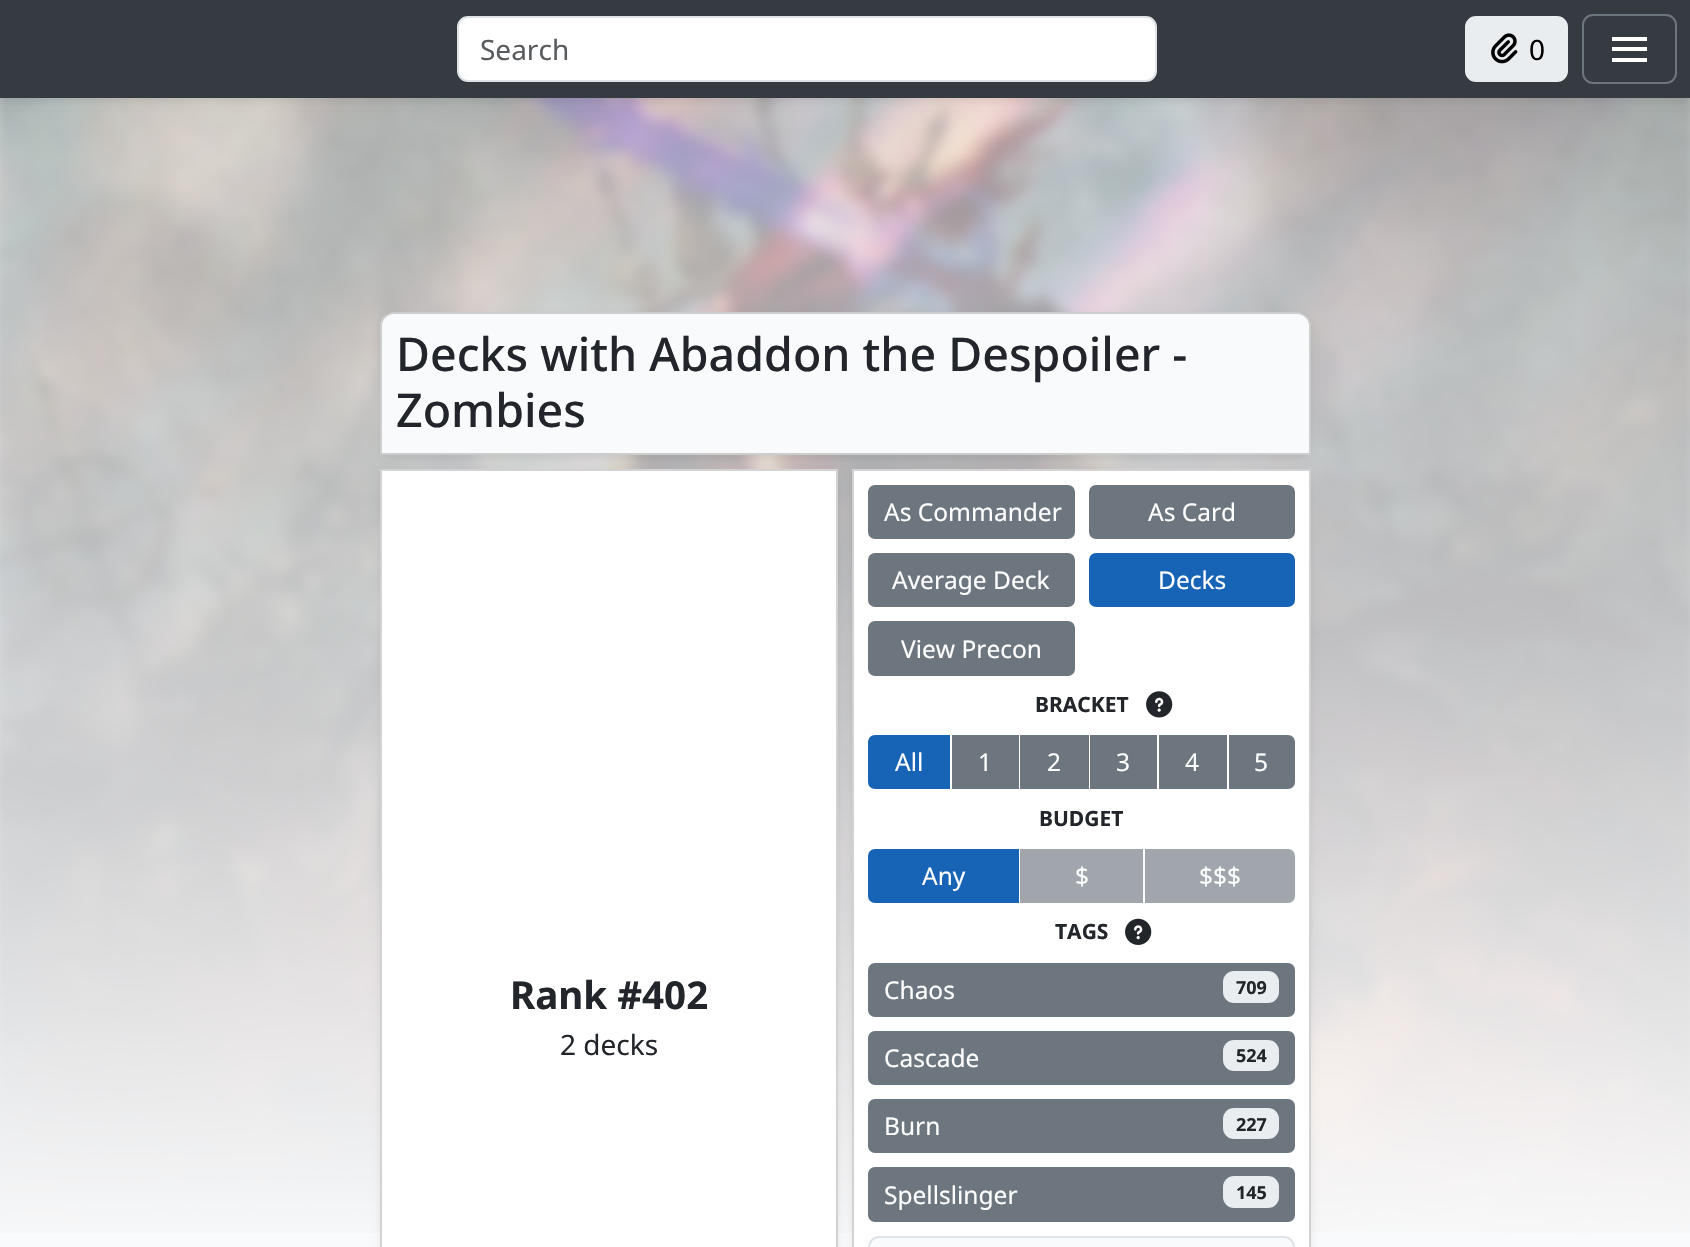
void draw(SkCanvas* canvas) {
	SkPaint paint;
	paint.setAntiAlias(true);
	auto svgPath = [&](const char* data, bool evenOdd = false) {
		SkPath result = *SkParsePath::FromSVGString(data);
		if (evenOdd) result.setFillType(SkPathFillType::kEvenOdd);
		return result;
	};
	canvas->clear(0xfff9fafb);
	canvas->drawImageRect(SkImages::DeferredFromEncodedData(SkData::MakeFromFileName("img2.png")), SkRect::MakeXYWH(0, 98, 1690, 1135), SkSamplingOptions());
	paint.setColor(0x12000000);
	paint.setMaskFilter(SkMaskFilter::MakeBlur(kNormal_SkBlurStyle, 3.5));
	canvas->drawRect(SkRect::MakeXYWH(0, 4, 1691, 98), paint);
	paint.setMaskFilter(nullptr);
	paint.setColor(0xff353b41);
	canvas->drawRect(SkRect::MakeXYWH(0, 0, 1690, 98), paint);
	paint.setColor(0xffffffff);
	canvas->drawRoundRect(SkRect::MakeXYWH(458, 17, 698, 64), 10, 10, paint);
	paint.setStroke(true);
	paint.setStrokeWidth(2);
	paint.setColor(0xffdfe3e7);
	canvas->drawRoundRect(SkRect::MakeXYWH(458, 17, 698, 64), 10, 10, paint);
	SkFont f1(fontMgr->matchFamilyStyle("Noto Sans", SkFontStyle::Normal()), 28);
	f1.setSubpixel(true);
	paint.setStroke(false);
	paint.setColor(0xff595c5f);
	canvas->drawString("Search", 480, 60, f1, paint);
	paint.setColor(0xffeaedf0);
	canvas->drawRoundRect(SkRect::MakeXYWH(1466, 17, 101, 64), 10, 10, paint);
	paint.setStroke(true);
	canvas->drawRoundRect(SkRect::MakeXYWH(1466, 17, 101, 64), 10, 10, paint);
	canvas->drawImageRect(SkImages::DeferredFromEncodedData(SkData::MakeFromFileName("img1.png")), SkRect::MakeXYWH(1491, 33, 27, 31), SkSamplingOptions());
	paint.setStroke(false);
	paint.setColor(0xff000000);
	canvas->drawString("0", 1529, 60, f1, paint);
	paint.setStroke(true);
	paint.setColor(0xff6d767e);
	canvas->drawRoundRect(SkRect::MakeXYWH(1583, 15, 93, 68), 10, 10, paint);
	paint.setStroke(false);
	paint.setColor(0xffffffff);
	canvas->drawRect(SkRect::MakeXYWH(1612, 37, 35, 4), paint);
	canvas->drawRect(SkRect::MakeXYWH(1612, 47, 35, 4), paint);
	canvas->drawRect(SkRect::MakeXYWH(1612, 58, 35, 4), paint);
	paint.setColor(0x12000000);
	paint.setMaskFilter(SkMaskFilter::MakeBlur(kNormal_SkBlurStyle, 3.5));
	canvas->drawRoundRect(SkRect::MakeXYWH(380, 315, 931, 144), 14, 14, paint);
	paint.setMaskFilter(nullptr);
	paint.setColor(0xfff9fafb);
	canvas->drawPath(svgPath("M394 312H1297C1304.5 312 1311 318.5 1311 326V455H380V326C380 318.5 386.5 312 394 312Z"), paint);
	paint.setStroke(true);
	paint.setColor(0x2e000000);
	canvas->drawPath(svgPath("M394 313H1297C1304 313 1310 319 1310 326V454H381V326C381 319 387 313 394 313Z"), paint);
	SkFont f2(fontMgr->matchFamilyStyle("Noto Sans", SkFontStyle(500, SkFontStyle::kNormal_Width, SkFontStyle::kUpright_Slant)), 46.5);
	f2.setSubpixel(true);
	paint.setStroke(false);
	paint.setColor(0xff22262a);
	canvas->drawString("Decks with Abaddon the Despoiler -", 396, 371, f2, paint);
	canvas->drawString("Zombies", 396, 427, f2, paint);
	paint.setColor(0x12000000);
	paint.setMaskFilter(SkMaskFilter::MakeBlur(kNormal_SkBlurStyle, 3.5));
	canvas->drawRect(SkRect::MakeXYWH(380, 473, 458, 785), paint);
	paint.setMaskFilter(nullptr);
	paint.setColor(0xffffffff);
	canvas->drawRect(SkRect::MakeXYWH(381, 470, 456, 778), paint);
	paint.setStroke(true);
	paint.setColor(0xffd2d2d2);
	canvas->drawRect(SkRect::MakeXYWH(381, 470, 456, 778), paint);
	SkFont f3(fontMgr->matchFamilyStyle("Noto Sans", SkFontStyle::Bold()), 38.5);
	f3.setSubpixel(true);
	paint.setStroke(false);
	paint.setColor(0xff22262a);
	canvas->drawString("Rank #402", 510, 1009, f3, paint);
	canvas->drawString("2 decks", 560, 1055, f1, paint);
	paint.setColor(0x12000000);
	paint.setMaskFilter(SkMaskFilter::MakeBlur(kNormal_SkBlurStyle, 3.5));
	canvas->drawRect(SkRect::MakeXYWH(852, 473, 459, 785), paint);
	paint.setMaskFilter(nullptr);
	paint.setColor(0xffffffff);
	canvas->drawRect(SkRect::MakeXYWH(853, 470, 457, 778), paint);
	paint.setStroke(true);
	paint.setColor(0xffd2d2d2);
	canvas->drawRect(SkRect::MakeXYWH(853, 470, 457, 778), paint);
	paint.setStroke(false);
	paint.setColor(0xff6d767e);
	canvas->drawRoundRect(SkRect::MakeXYWH(869, 486, 205, 52), 6, 6, paint);
	paint.setStroke(true);
	canvas->drawRoundRect(SkRect::MakeXYWH(869, 486, 205, 52), 6, 6, paint);
	SkFont f4(fontMgr->matchFamilyStyle("Noto Sans", SkFontStyle::Normal()), 24.5);
	f4.setSubpixel(true);
	paint.setStroke(false);
	paint.setColor(0xffffffff);
	canvas->drawString("As Commander", 884, 521, f4, paint);
	paint.setColor(0xff6d767e);
	canvas->drawRoundRect(SkRect::MakeXYWH(1090, 486, 204, 52), 6, 6, paint);
	paint.setStroke(true);
	canvas->drawRoundRect(SkRect::MakeXYWH(1090, 486, 204, 52), 6, 6, paint);
	paint.setStroke(false);
	paint.setColor(0xffffffff);
	canvas->drawString("As Card", 1148, 521, f4, paint);
	paint.setColor(0xff6d767e);
	canvas->drawRoundRect(SkRect::MakeXYWH(869, 554, 205, 52), 6, 6, paint);
	paint.setStroke(true);
	canvas->drawRoundRect(SkRect::MakeXYWH(869, 554, 205, 52), 6, 6, paint);
	paint.setStroke(false);
	paint.setColor(0xffffffff);
	canvas->drawString("Average Deck", 892, 589, f4, paint);
	paint.setColor(0xff1763b5);
	canvas->drawRoundRect(SkRect::MakeXYWH(1090, 554, 204, 52), 6, 6, paint);
	paint.setStroke(true);
	canvas->drawRoundRect(SkRect::MakeXYWH(1090, 554, 204, 52), 6, 6, paint);
	paint.setStroke(false);
	paint.setColor(0xffffffff);
	canvas->drawString("Decks", 1158, 589, f4, paint);
	paint.setColor(0xff6d767e);
	canvas->drawRoundRect(SkRect::MakeXYWH(869, 622, 205, 53), 6, 6, paint);
	paint.setStroke(true);
	canvas->drawRoundRect(SkRect::MakeXYWH(869, 622, 205, 53), 6, 6, paint);
	paint.setStroke(false);
	paint.setColor(0xffffffff);
	canvas->drawString("View Precon", 901, 658, f4, paint);
	SkFont f5(fontMgr->matchFamilyStyle("Noto Sans", SkFontStyle::Bold()), 21);
	f5.setSubpixel(true);
	paint.setColor(0xff22262a);
	canvas->drawString("BRACKET", 1035, 712, f5, paint);
	canvas->drawImageRect(SkImages::DeferredFromEncodedData(SkData::MakeFromFileName("img3.png")), SkRect::MakeXYWH(1146, 691, 27, 27), SkSamplingOptions());
	paint.setColor(0xff1763b5);
	canvas->drawPath(svgPath("M875 736H949V788H875C871.5 788 869 785.5 869 782V742C869 738.5 871.5 736 875 736Z"), paint);
	paint.setStroke(true);
	canvas->drawPath(svgPath("M875 736H949V788H875C871.5 788 869 785.5 869 782V742C869 738.5 871.5 736 875 736Z"), paint);
	paint.setStroke(false);
	paint.setColor(0xffffffff);
	canvas->drawString("All", 895, 771, f4, paint);
	paint.setColor(0xff6d767e);
	canvas->drawRect(SkRect::MakeXYWH(952, 735, 67, 54), paint);
	paint.setColor(0xffffffff);
	canvas->drawString("1", 978, 771, f4, paint);
	paint.setColor(0xff6d767e);
	canvas->drawRect(SkRect::MakeXYWH(1020, 735, 69, 54), paint);
	paint.setColor(0xffffffff);
	canvas->drawString("2", 1047, 771, f4, paint);
	paint.setColor(0xff6d767e);
	canvas->drawRect(SkRect::MakeXYWH(1090, 735, 67, 54), paint);
	paint.setColor(0xffffffff);
	canvas->drawString("3", 1116, 771, f4, paint);
	paint.setColor(0xff6d767e);
	canvas->drawRect(SkRect::MakeXYWH(1159, 735, 68, 54), paint);
	paint.setColor(0xffffffff);
	canvas->drawString("4", 1185, 771, f4, paint);
	paint.setColor(0xff6d767e);
	canvas->drawPath(svgPath("M1230 736H1288C1291.5 736 1294 738.5 1294 742V782C1294 785.5 1291.5 788 1288 788H1230Z"), paint);
	paint.setStroke(true);
	canvas->drawPath(svgPath("M1230 736H1288C1291.5 736 1294 738.5 1294 742V782C1294 785.5 1291.5 788 1288 788H1230Z"), paint);
	paint.setStroke(false);
	paint.setColor(0xffffffff);
	canvas->drawString("5", 1254, 771, f4, paint);
	paint.setColor(0xff22262a);
	canvas->drawString("BUDGET", 1039, 826, f5, paint);
	paint.setColor(0xff1763b5);
	canvas->drawPath(svgPath("M875 850H1018V902H875C871.5 902 869 899.5 869 896V856C869 852.5 871.5 850 875 850Z"), paint);
	paint.setStroke(true);
	canvas->drawPath(svgPath("M875 850H1018V902H875C871.5 902 869 899.5 869 896V856C869 852.5 871.5 850 875 850Z"), paint);
	paint.setStroke(false);
	paint.setColor(0xffffffff);
	canvas->drawString("Any", 922, 885, f4, paint);
	paint.setColor(0xffa0a6ab);
	canvas->drawRect(SkRect::MakeXYWH(1020, 849, 123, 54), paint);
	paint.setColor(0xffffffff);
	canvas->drawString("$", 1075, 885, f4, paint);
	paint.setColor(0xffa0a6ab);
	canvas->drawPath(svgPath("M1146 850H1288C1291.5 850 1294 852.5 1294 856V896C1294 899.5 1291.5 902 1288 902H1146Z"), paint);
	paint.setStroke(true);
	canvas->drawPath(svgPath("M1146 850H1288C1291.5 850 1294 852.5 1294 856V896C1294 899.5 1291.5 902 1288 902H1146Z"), paint);
	paint.setStroke(false);
	paint.setColor(0xffffffff);
	canvas->drawString("$$$", 1199, 885, f4, paint);
	paint.setColor(0xff22262a);
	canvas->drawString("TAGS", 1055, 939, f5, paint);
	canvas->drawImageRect(SkImages::DeferredFromEncodedData(SkData::MakeFromFileName("img4.png")), SkRect::MakeXYWH(1125, 918, 27, 27), SkSamplingOptions());
	paint.setColor(0xff6d767e);
	canvas->drawRoundRect(SkRect::MakeXYWH(869, 964, 425, 52), 6, 6, paint);
	paint.setStroke(true);
	canvas->drawRoundRect(SkRect::MakeXYWH(869, 964, 425, 52), 6, 6, paint);
	paint.setStroke(false);
	paint.setColor(0xffffffff);
	canvas->drawString("Chaos", 884, 999, f4, paint);
	paint.setColor(0xffeaedf0);
	canvas->drawRoundRect(SkRect::MakeXYWH(1223, 971, 56, 32), 11, 11, paint);
	SkFont f6(fontMgr->matchFamilyStyle("Noto Sans", SkFontStyle::Bold()), 18);
	f6.setSubpixel(true);
	paint.setColor(0xff22262a);
	canvas->drawString("709", 1236, 994, f6, paint);
	paint.setColor(0xff6d767e);
	canvas->drawRoundRect(SkRect::MakeXYWH(869, 1032, 425, 52), 6, 6, paint);
	paint.setStroke(true);
	canvas->drawRoundRect(SkRect::MakeXYWH(869, 1032, 425, 52), 6, 6, paint);
	paint.setStroke(false);
	paint.setColor(0xffffffff);
	canvas->drawString("Cascade", 884, 1067, f4, paint);
	paint.setColor(0xffeaedf0);
	canvas->drawRoundRect(SkRect::MakeXYWH(1223, 1040, 56, 31), 11, 11, paint);
	paint.setColor(0xff22262a);
	canvas->drawString("524", 1236, 1062, f6, paint);
	paint.setColor(0xff6d767e);
	canvas->drawRoundRect(SkRect::MakeXYWH(869, 1100, 425, 52), 6, 6, paint);
	paint.setStroke(true);
	canvas->drawRoundRect(SkRect::MakeXYWH(869, 1100, 425, 52), 6, 6, paint);
	paint.setStroke(false);
	paint.setColor(0xffffffff);
	canvas->drawString("Burn", 884, 1135, f4, paint);
	paint.setColor(0xffeaedf0);
	canvas->drawRoundRect(SkRect::MakeXYWH(1223, 1108, 56, 31), 11, 11, paint);
	paint.setColor(0xff22262a);
	canvas->drawString("227", 1236, 1131, f6, paint);
	paint.setColor(0xff6d767e);
	canvas->drawRoundRect(SkRect::MakeXYWH(869, 1168, 425, 53), 6, 6, paint);
	paint.setStroke(true);
	canvas->drawRoundRect(SkRect::MakeXYWH(869, 1168, 425, 53), 6, 6, paint);
	paint.setStroke(false);
	paint.setColor(0xffffffff);
	canvas->drawString("Spellslinger", 884, 1204, f4, paint);
	paint.setColor(0xffeaedf0);
	canvas->drawRoundRect(SkRect::MakeXYWH(1223, 1176, 56, 32), 11, 11, paint);
	paint.setColor(0xff22262a);
	canvas->drawString("145", 1236, 1199, f6, paint);
	paint.setColor(0xfff9fafb);
	canvas->drawRoundRect(SkRect::MakeXYWH(870, 1237, 423, 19), 9, 9, paint);
	paint.setStroke(true);
	paint.setColor(0xffdfe3e7);
	canvas->drawRoundRect(SkRect::MakeXYWH(869, 1237, 425, 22), 10, 10, paint);
}
